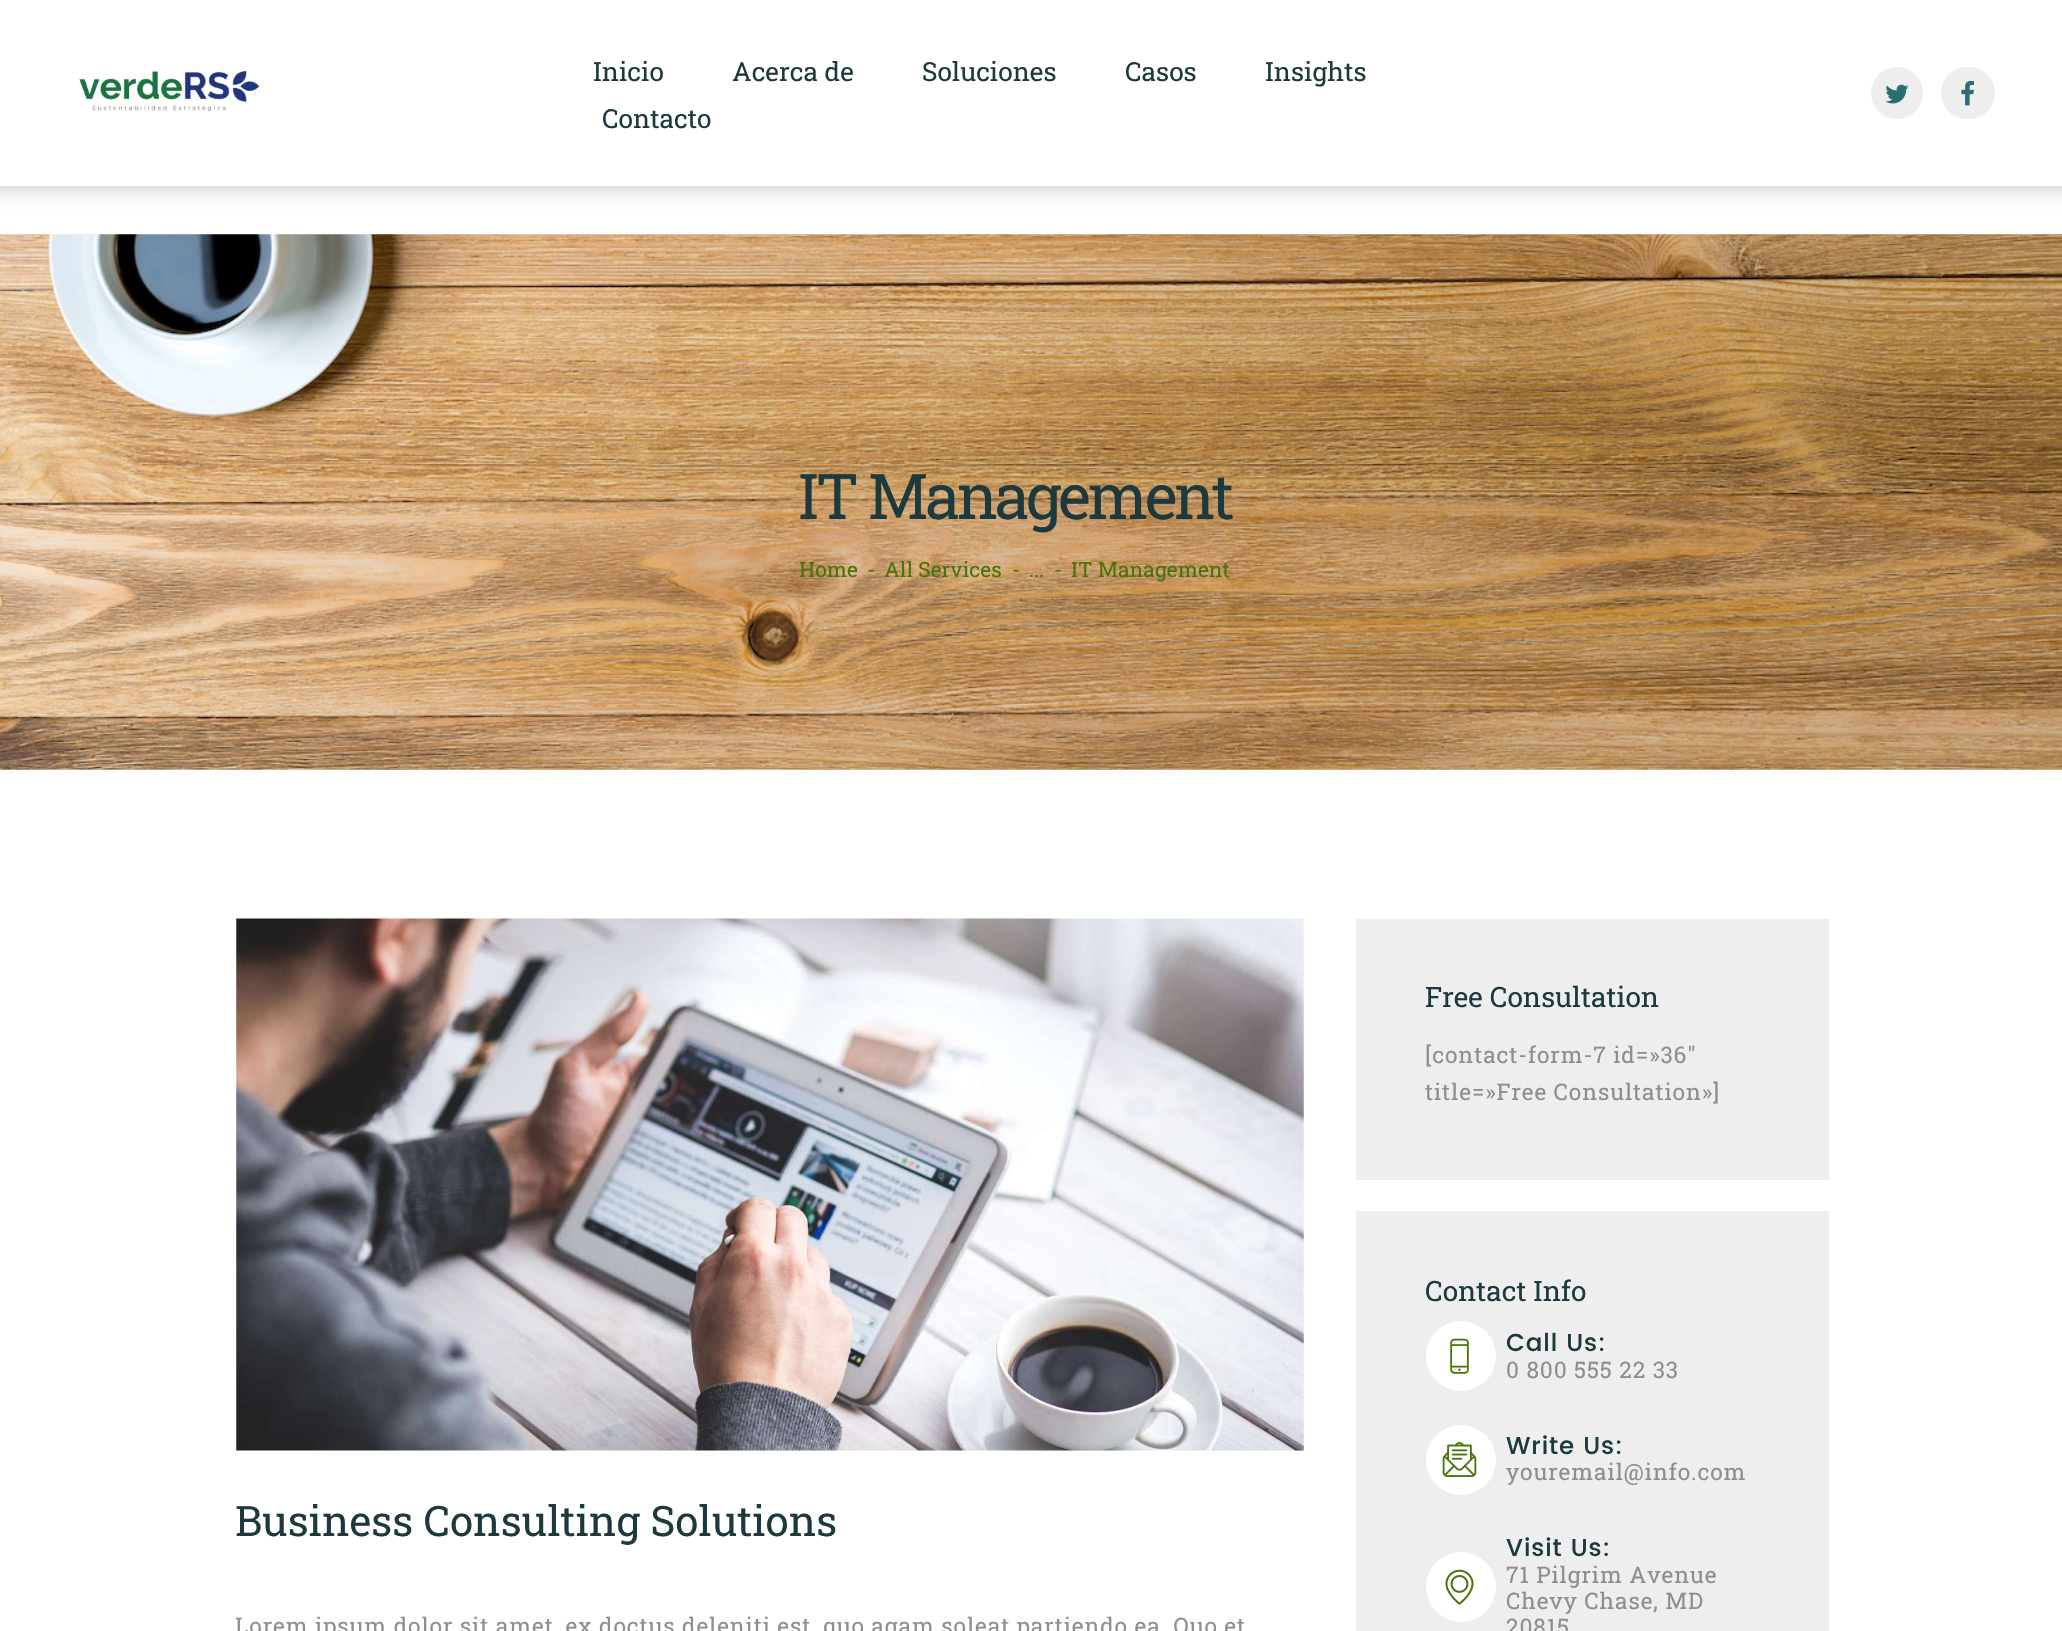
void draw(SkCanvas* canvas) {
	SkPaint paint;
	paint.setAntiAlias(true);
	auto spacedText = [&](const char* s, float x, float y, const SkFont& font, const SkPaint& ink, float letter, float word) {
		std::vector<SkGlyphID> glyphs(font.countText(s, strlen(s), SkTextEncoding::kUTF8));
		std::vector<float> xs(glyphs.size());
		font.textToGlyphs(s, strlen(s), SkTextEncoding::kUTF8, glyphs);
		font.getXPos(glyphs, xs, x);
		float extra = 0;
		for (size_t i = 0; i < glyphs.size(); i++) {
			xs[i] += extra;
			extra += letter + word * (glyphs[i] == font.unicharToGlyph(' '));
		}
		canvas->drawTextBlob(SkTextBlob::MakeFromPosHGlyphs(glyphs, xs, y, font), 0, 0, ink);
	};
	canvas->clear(0xffffffff);
	paint.setColor(0x33000000);
	paint.setMaskFilter(SkMaskFilter::MakeBlur(kNormal_SkBlurStyle, 9));
	canvas->drawRect(SkRect::MakeXYWH(-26, 4, 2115, 185), paint);
	paint.setMaskFilter(nullptr);
	paint.setColor(0xffffffff);
	canvas->drawRect(SkRect::MakeXYWH(0, 0, 2062, 186), paint);
	canvas->drawImageRect(SkImages::DeferredFromEncodedData(SkData::MakeFromFileName("img1.png")), SkRect::MakeXYWH(79, 70, 181, 42), SkSamplingOptions());
	SkFont f1(fontMgr->matchFamilyStyle("Roboto Slab", SkFontStyle::Normal()), 26.25);
	f1.setSubpixel(true);
	paint.setColor(0xff1c393d);
	canvas->drawString("Inicio", 593, 81, f1, paint);
	canvas->drawString("Acerca de", 732, 81, f1, paint);
	canvas->drawString("Soluciones", 922, 81, f1, paint);
	canvas->drawString("Casos", 1125, 81, f1, paint);
	canvas->drawString("Insights", 1265, 81, f1, paint);
	canvas->drawString("Contacto", 602, 128, f1, paint);
	paint.setColor(0xffeeeeee);
	canvas->drawCircle(1897, 93, 26, paint);
	canvas->drawImageRect(SkImages::DeferredFromEncodedData(SkData::MakeFromFileName("img2.png")), SkRect::MakeXYWH(1885, 84, 24, 20), SkSamplingOptions());
	canvas->drawRoundRect(SkRect::MakeXYWH(1941, 67, 54, 52), 26, 26, paint);
	canvas->drawImageRect(SkImages::DeferredFromEncodedData(SkData::MakeFromFileName("img3.png")), SkRect::MakeXYWH(1961, 80, 14, 26), SkSamplingOptions());
	canvas->drawImageRect(SkImages::DeferredFromEncodedData(SkData::MakeFromFileName("img4.png")), SkRect::MakeXYWH(0, 234, 2062, 536), SkSamplingOptions());
	SkFont f2(fontMgr->matchFamilyStyle("Roboto Slab", SkFontStyle::Normal()), 63);
	f2.setSubpixel(true);
	paint.setColor(0xff1c393d);
	spacedText("IT Management", 798, 519, f2, paint, -3.4, 0);
	SkFont f3(fontMgr->matchFamilyStyle("Roboto Slab", SkFontStyle::Normal()), 21);
	f3.setSubpixel(true);
	paint.setColor(0xff4a730b);
	canvas->drawString("Home", 799, 577, f3, paint);
	canvas->drawString("-", 867, 577, f3, paint);
	canvas->drawString("All Services", 884, 577, f3, paint);
	canvas->drawString("-", 1012, 577, f3, paint);
	canvas->drawString("-", 1054, 577, f3, paint);
	canvas->drawString("IT Management", 1071, 577, f3, paint);
	canvas->drawString("...", 1029, 577, f3, paint);
	canvas->drawImageRect(SkImages::DeferredFromEncodedData(SkData::MakeFromFileName("img5.png")), SkRect::MakeXYWH(236, 918, 1068, 533), SkSamplingOptions());
	SkFont f4(fontMgr->matchFamilyStyle("Roboto Slab", SkFontStyle::Normal()), 42);
	f4.setSubpixel(true);
	paint.setColor(0xff1c393d);
	canvas->drawString("Business Consulting Solutions", 235, 1536, f4, paint);
	SkFont f5(fontMgr->matchFamilyStyle("Roboto Slab", SkFontStyle::Normal()), 22.75);
	f5.setSubpixel(true);
	paint.setColor(0xff8d8e90);
	spacedText("Lorem ipsum dolor sit amet, ex doctus deleniti est, quo agam soleat partiendo ea. Quo et", 235, 1634, f5, paint, 0.88, 0);
	paint.setColor(0xffeeeeee);
	canvas->drawRect(SkRect::MakeXYWH(1356, 919, 473, 261), paint);
	SkFont f6(fontMgr->matchFamilyStyle("Roboto Slab", SkFontStyle::Normal()), 28);
	f6.setSubpixel(true);
	paint.setColor(0xff1c393d);
	canvas->drawString("Free Consultation", 1425, 1007, f6, paint);
	paint.setColor(0xff8d8e90);
	spacedText("[contact-form-7 id=»36″", 1425, 1063, f5, paint, 0.88, 0);
	spacedText("title=»Free Consultation»]", 1425, 1100, f5, paint, 0.88, 0);
	paint.setColor(0xffeeeeee);
	canvas->drawRect(SkRect::MakeXYWH(1356, 1211, 473, 420), paint);
	paint.setColor(0xff1c393d);
	canvas->drawString("Contact Info", 1425, 1301, f6, paint);
	paint.setColor(0xffffffff);
	canvas->drawCircle(1461, 1356, 35, paint);
	canvas->drawImageRect(SkImages::DeferredFromEncodedData(SkData::MakeFromFileName("img6.png")), SkRect::MakeXYWH(1450, 1338, 19, 36), SkSamplingOptions());
	SkFont f7(fontMgr->matchFamilyStyle("Poppins", SkFontStyle(500, SkFontStyle::kNormal_Width, SkFontStyle::kUpright_Slant)), 24.5);
	f7.setSubpixel(true);
	paint.setColor(0xff1c393d);
	spacedText("Call Us:", 1506, 1351, f7, paint, 0.88, 0);
	paint.setColor(0xff8d8e90);
	spacedText("0 800 555 22 33", 1506, 1378, f5, paint, 0.88, 0);
	paint.setColor(0xffffffff);
	canvas->drawCircle(1461, 1460, 35, paint);
	canvas->drawImageRect(SkImages::DeferredFromEncodedData(SkData::MakeFromFileName("img7.png")), SkRect::MakeXYWH(1442, 1442, 35, 35), SkSamplingOptions());
	paint.setColor(0xff1c393d);
	spacedText("Write Us:", 1506, 1454, f7, paint, 0.88, 0);
	paint.setColor(0xff8d8e90);
	spacedText("youremail@info.com", 1506, 1480, f5, paint, 0.88, 0);
	paint.setColor(0xff1c393d);
	spacedText("Visit Us:", 1506, 1556, f7, paint, 0.88, 0);
	paint.setColor(0xffffffff);
	canvas->drawCircle(1461, 1587, 35, paint);
	canvas->drawImageRect(SkImages::DeferredFromEncodedData(SkData::MakeFromFileName("img8.png")), SkRect::MakeXYWH(1445, 1569, 29, 36), SkSamplingOptions());
	paint.setColor(0xff8d8e90);
	spacedText("71 Pilgrim Avenue", 1506, 1583, f5, paint, 0.88, 0);
	spacedText("Chevy Chase, MD", 1506, 1609, f5, paint, 0.88, 0);
	spacedText("20815", 1506, 1635, f5, paint, 0.88, 0);
}
